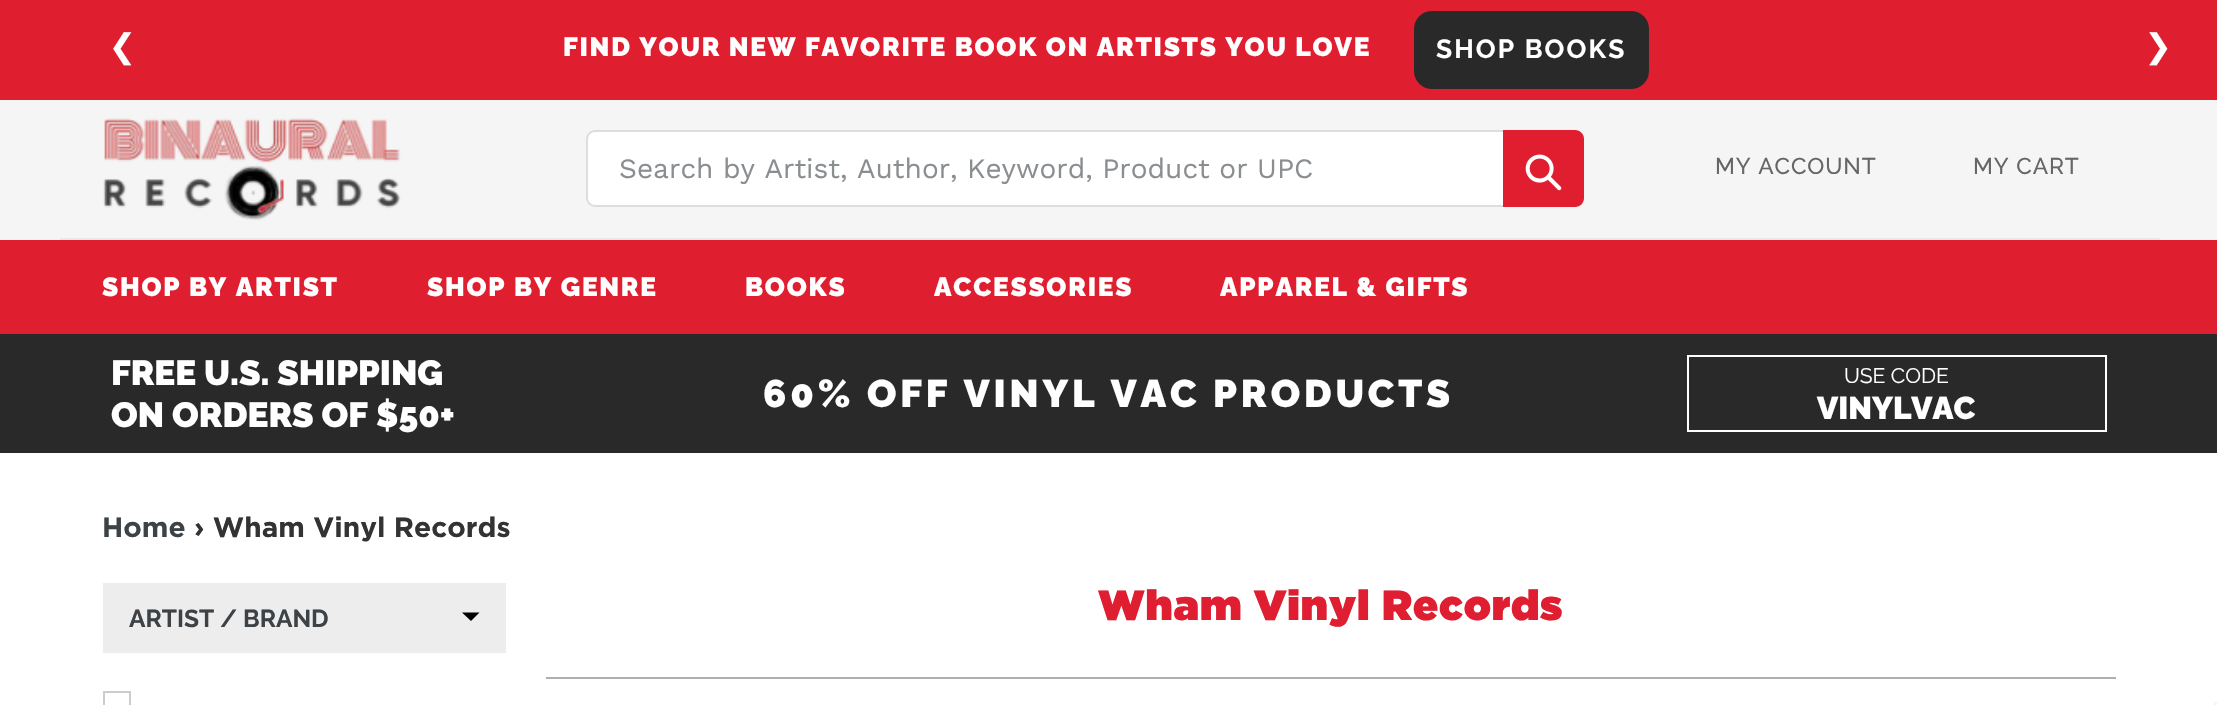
void draw(SkCanvas* canvas) {
	SkPaint paint;
	paint.setAntiAlias(true);
	auto spacedText = [&](const char* s, float x, float y, const SkFont& font, const SkPaint& ink, float letter, float word) {
		std::vector<SkGlyphID> glyphs(font.countText(s, strlen(s), SkTextEncoding::kUTF8));
		std::vector<float> xs(glyphs.size());
		font.textToGlyphs(s, strlen(s), SkTextEncoding::kUTF8, glyphs);
		font.getXPos(glyphs, xs, x);
		float extra = 0;
		for (size_t i = 0; i < glyphs.size(); i++) {
			xs[i] += extra;
			extra += letter + word * (glyphs[i] == font.unicharToGlyph(' '));
		}
		canvas->drawTextBlob(SkTextBlob::MakeFromPosHGlyphs(glyphs, xs, y, font), 0, 0, ink);
	};
	auto svgPath = [&](const char* data, bool evenOdd = false) {
		SkPath result = *SkParsePath::FromSVGString(data);
		if (evenOdd) result.setFillType(SkPathFillType::kEvenOdd);
		return result;
	};
	canvas->clear(0xffffffff);
	paint.setColor(0xfff5f5f5);
	canvas->drawRect(SkRect::MakeXYWH(0, 100, 2217, 140), paint);
	paint.setColor(0xffdf1e30);
	canvas->drawRect(SkRect::MakeXYWH(0, 0, 2217, 100), paint);
	SkFont f1(fontMgr->matchFamilyStyle("Work Sans", SkFontStyle::Normal()), 84);
	f1.setSubpixel(true);
	paint.setColor(0xffffffff);
	canvas->drawString("‹", 109, 71, f1, paint);
	canvas->drawString("›", 2145, 71, f1, paint);
	SkFont f2(fontMgr->matchFamilyStyle("Raleway", SkFontStyle(900, SkFontStyle::kNormal_Width, SkFontStyle::kUpright_Slant)), 26.25);
	f2.setSubpixel(true);
	spacedText("FIND YOUR NEW FAVORITE BOOK ON ARTISTS YOU LOVE", 563, 56, f2, paint, 1.75, 0);
	paint.setColor(0xff292929);
	canvas->drawRoundRect(SkRect::MakeXYWH(1414, 11, 235, 78), 18, 18, paint);
	SkFont f3(fontMgr->matchFamilyStyle("Raleway", SkFontStyle::Bold()), 26.25);
	f3.setSubpixel(true);
	paint.setColor(0xffffffff);
	spacedText("SHOP BOOKS", 1436, 58, f3, paint, 2.1, 0);
	paint.setColor(0xffe8e9eb);
	canvas->drawRect(SkRect::MakeXYWH(60, 238, 2100, 2), paint);
	canvas->drawImageRect(SkImages::DeferredFromEncodedData(SkData::MakeFromFileName("img1.png")), SkRect::MakeXYWH(103, 118, 298, 103), SkSamplingOptions());
	paint.setColor(0xffffffff);
	canvas->drawRoundRect(SkRect::MakeXYWH(587, 131, 996, 75), 8, 8, paint);
	paint.setStroke(true);
	paint.setStrokeWidth(2);
	paint.setColor(0xffdddddd);
	canvas->drawRoundRect(SkRect::MakeXYWH(587, 131, 996, 75), 8, 8, paint);
	SkFont f4(fontMgr->matchFamilyStyle("Work Sans", SkFontStyle::Normal()), 28);
	f4.setSubpixel(true);
	paint.setStroke(false);
	paint.setColor(0xff8b8e90);
	canvas->drawString("Search by Artist, Author, Keyword, Product or UPC", 619, 178, f4, paint);
	paint.setColor(0xffe01e30);
	canvas->drawPath(svgPath("M1503 130H1575C1580 130 1584 134 1584 139V198C1584 203 1580 207 1575 207H1503Z"), paint);
	canvas->drawImageRect(SkImages::DeferredFromEncodedData(SkData::MakeFromFileName("img2.png")), SkRect::MakeXYWH(1525, 154, 37, 37), SkSamplingOptions());
	SkFont f5(fontMgr->matchFamilyStyle("Raleway", SkFontStyle(500, SkFontStyle::kNormal_Width, SkFontStyle::kUpright_Slant)), 22.75);
	f5.setSubpixel(true);
	paint.setColor(0xff666666);
	spacedText("MY ACCOUNT", 1715, 174, f5, paint, 0.9, 0);
	spacedText("MY CART", 1973, 174, f5, paint, 0.9, 0);
	paint.setColor(0xffdf1e30);
	canvas->drawRect(SkRect::MakeXYWH(0, 240, 2217, 94), paint);
	paint.setColor(0xffffffff);
	spacedText("SHOP BY ARTIST", 102, 296, f2, paint, 1.75, 0);
	spacedText("SHOP BY GENRE", 427, 296, f2, paint, 1.75, 0);
	spacedText("BOOKS", 745, 296, f2, paint, 1.75, 0);
	spacedText("ACCESSORIES", 934, 296, f2, paint, 1.75, 0);
	spacedText("APPAREL & GIFTS", 1220, 296, f2, paint, 1.75, 0);
	paint.setColor(0xff292929);
	canvas->drawRect(SkRect::MakeXYWH(0, 334, 2217, 119), paint);
	SkFont f6(fontMgr->matchFamilyStyle("Raleway", SkFontStyle(900, SkFontStyle::kNormal_Width, SkFontStyle::kUpright_Slant)), 35);
	f6.setSubpixel(true);
	paint.setColor(0xffffffff);
	canvas->drawString("FREE U.S. SHIPPING", 111, 385, f6, paint);
	canvas->drawString("ON ORDERS OF $50+", 111, 427, f6, paint);
	SkFont f7(fontMgr->matchFamilyStyle("Raleway", SkFontStyle(900, SkFontStyle::kNormal_Width, SkFontStyle::kUpright_Slant)), 38.5);
	f7.setSubpixel(true);
	spacedText("60% OFF VINYL VAC PRODUCTS", 763, 407, f7, paint, 3.85, 0);
	paint.setStroke(true);
	canvas->drawRect(SkRect::MakeXYWH(1688, 356, 418, 75), paint);
	SkFont f8(fontMgr->matchFamilyStyle("Raleway", SkFontStyle(100, SkFontStyle::kNormal_Width, SkFontStyle::kUpright_Slant)), 21);
	f8.setSubpixel(true);
	paint.setStroke(false);
	canvas->drawString("USE CODE", 1844, 383, f8, paint);
	SkFont f9(fontMgr->matchFamilyStyle("Raleway", SkFontStyle(900, SkFontStyle::kNormal_Width, SkFontStyle::kUpright_Slant)), 31.5);
	f9.setSubpixel(true);
	canvas->drawString("VINYLVAC", 1817, 419, f9, paint);
	SkFont f10(fontMgr->matchFamilyStyle("Gotham", SkFontStyle::Bold()), 28);
	f10.setSubpixel(true);
	paint.setColor(0xff3d4246);
	canvas->drawString("Home", 102, 537, f10, paint);
	paint.setColor(0xff333333);
	canvas->drawString("› Wham Vinyl Records", 194, 537, f10, paint);
	paint.setColor(0xffededed);
	canvas->drawRect(SkRect::MakeXYWH(103, 583, 403, 70), paint);
	SkFont f11(fontMgr->matchFamilyStyle("Raleway", SkFontStyle::Bold()), 24.5);
	f11.setSubpixel(true);
	paint.setColor(0xff3d4246);
	canvas->drawString("ARTIST / BRAND", 129, 627, f11, paint);
	paint.setColor(0xff000000);
	canvas->drawPath(svgPath("M462 612.5H479.5L471 621Z"), paint);
	paint.setStroke(true);
	paint.setColor(0xffcccccc);
	canvas->drawRect(SkRect::MakeXYWH(104, 692, 26, 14), paint);
	paint.setStroke(false);
	paint.setColor(0xffafafaf);
	canvas->drawRect(SkRect::MakeXYWH(546, 677, 1570, 2), paint);
	SkFont f12(fontMgr->matchFamilyStyle("Gotham", SkFontStyle(900, SkFontStyle::kNormal_Width, SkFontStyle::kUpright_Slant)), 42);
	f12.setSubpixel(true);
	paint.setColor(0xffe01e31);
	spacedText("Wham Vinyl Records", 1098, 620, f12, paint, 0.9, 0);
	paint.setColor(0xfff5f5f5);
	canvas->drawRect(SkRect::MakeXYWH(2214, 702, 3, 3), paint);
}
